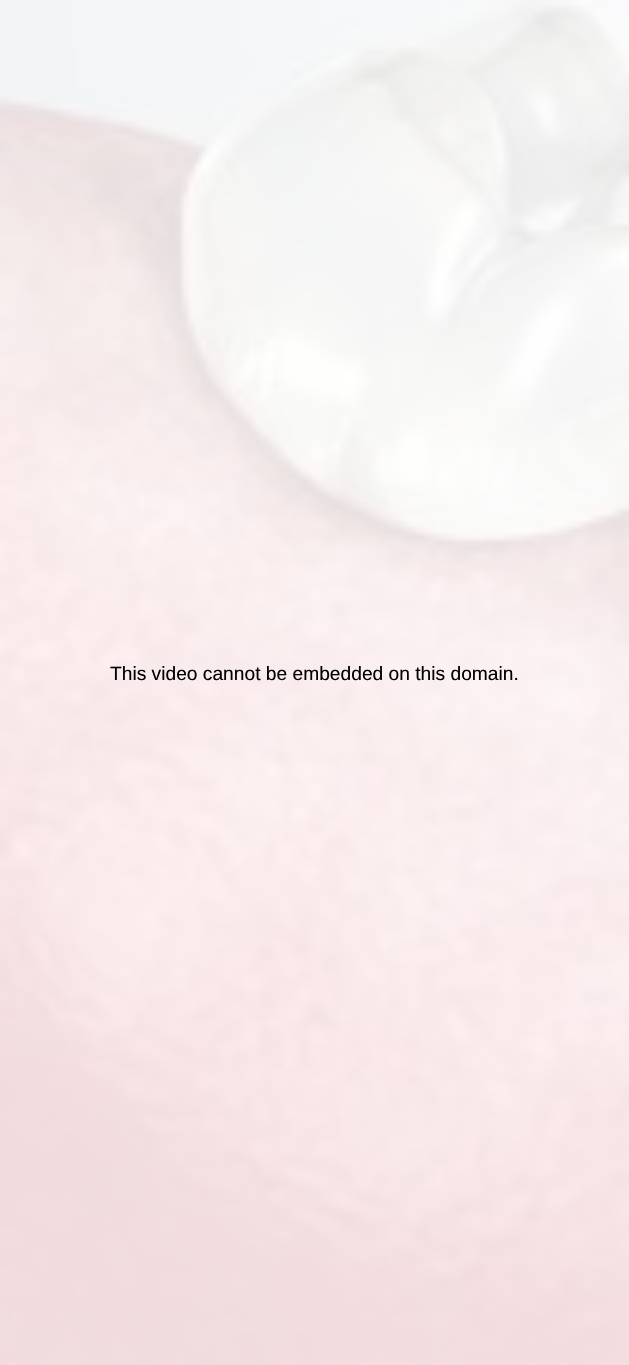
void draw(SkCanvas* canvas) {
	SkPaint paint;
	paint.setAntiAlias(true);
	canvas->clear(0xffffffff);
	canvas->drawImageRect(SkImages::DeferredFromEncodedData(SkData::MakeFromFileName("img1.png")), SkRect::MakeXYWH(0, 0, 629, 1365), SkSamplingOptions());
	SkFont f1(fontMgr->matchFamilyStyle("Liberation Sans", SkFontStyle::Normal()), 19.2);
	f1.setSubpixel(true);
	paint.setColor(0xff000000);
	canvas->drawString("This video cannot be embedded on this domain.", 110, 680, f1, paint);
}
